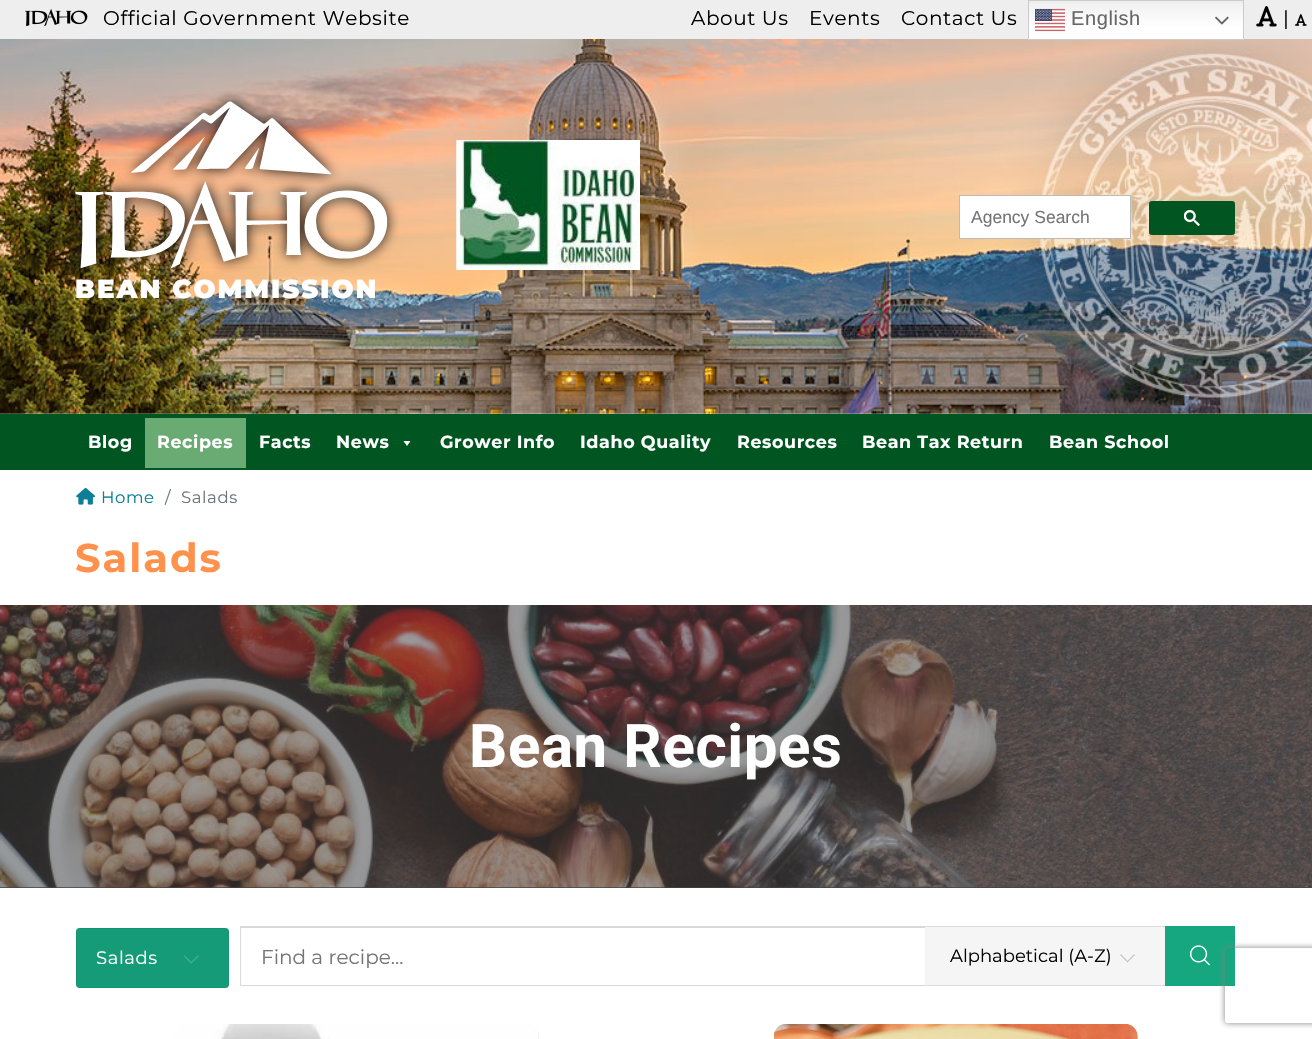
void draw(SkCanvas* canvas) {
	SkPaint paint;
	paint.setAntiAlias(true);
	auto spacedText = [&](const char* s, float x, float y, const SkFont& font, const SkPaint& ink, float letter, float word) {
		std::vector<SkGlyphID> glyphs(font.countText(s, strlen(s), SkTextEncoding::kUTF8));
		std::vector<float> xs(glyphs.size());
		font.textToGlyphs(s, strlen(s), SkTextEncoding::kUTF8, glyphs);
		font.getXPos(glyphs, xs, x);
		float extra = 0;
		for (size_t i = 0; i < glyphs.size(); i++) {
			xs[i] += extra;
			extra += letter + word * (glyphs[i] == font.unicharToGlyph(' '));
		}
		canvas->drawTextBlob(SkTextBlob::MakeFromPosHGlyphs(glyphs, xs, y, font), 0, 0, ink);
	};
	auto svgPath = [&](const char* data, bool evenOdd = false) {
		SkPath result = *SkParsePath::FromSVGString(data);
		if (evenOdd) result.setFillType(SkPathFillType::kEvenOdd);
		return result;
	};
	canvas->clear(0xffffffff);
	paint.setColor(0xffeeeeee);
	canvas->drawRect(SkRect::MakeXYWH(0, 0, 1312, 39), paint);
	canvas->drawImageRect(SkImages::DeferredFromEncodedData(SkData::MakeFromFileName("img1.png")), SkRect::MakeXYWH(25, 9, 63, 17), SkSamplingOptions());
	SkFont f1(fontMgr->matchFamilyStyle("Montserrat", SkFontStyle::Normal()), 20);
	f1.setSubpixel(true);
	paint.setColor(0xff000000);
	spacedText("Official Government Website", 103, 25, f1, paint, 0.6, 0);
	spacedText("About Us", 691, 25, f1, paint, 0.6, 0);
	spacedText("Events", 809, 25, f1, paint, 0.6, 0);
	spacedText("Contact Us", 901, 25, f1, paint, 0.6, 0);
	{
		const SkColor colors[] = {0xffefefef, 0xffffffff};
		const float stops[] = {0, 0.7};
		const SkPoint ends[] = {{1136, 0}, {1136, 40}};
		paint.setShader(SkGradientShader::MakeLinear(ends, colors, stops, 2, SkTileMode::kClamp));
		paint.setAlpha(255);
	}
	canvas->drawRect(SkRect::MakeXYWH(1029, 3, 214, 36), paint);
	canvas->drawImageRect(SkImages::DeferredFromEncodedData(SkData::MakeFromFileName("img6.png")), SkRect::MakeXYWH(0, 39, 1312, 375), SkSamplingOptions());
	paint.setStroke(true);
	paint.setStrokeWidth(1);
	paint.setShader(nullptr);
	paint.setColor(0xffcccccc);
	canvas->drawRect(SkRect::MakeXYWH(1028.5, 0.5, 215, 39), paint);
	canvas->drawImageRect(SkImages::DeferredFromEncodedData(SkData::MakeFromFileName("img2.png")), SkRect::MakeXYWH(1035, 8, 30, 24), SkSamplingOptions());
	SkFont f2(fontMgr->matchFamilyStyle("Liberation Sans", SkFontStyle::Normal()), 20);
	f2.setSubpixel(true);
	paint.setStroke(false);
	paint.setColor(0xff666666);
	spacedText("English", 1071, 25, f2, paint, 0.6, 0);
	canvas->drawImageRect(SkImages::DeferredFromEncodedData(SkData::MakeFromFileName("img3.png")), SkRect::MakeXYWH(1215, 16, 14, 9), SkSamplingOptions());
	canvas->drawImageRect(SkImages::DeferredFromEncodedData(SkData::MakeFromFileName("img4.png")), SkRect::MakeXYWH(1256, 6, 21, 21), SkSamplingOptions());
	paint.setColor(0xff000000);
	spacedText("|", 1283, 25, f1, paint, 0.6, 0);
	canvas->drawImageRect(SkImages::DeferredFromEncodedData(SkData::MakeFromFileName("img5.png")), SkRect::MakeXYWH(1295, 14, 12, 12), SkSamplingOptions());
	canvas->drawImageRect(SkImages::DeferredFromEncodedData(SkData::MakeFromFileName("img7.png")), SkRect::MakeXYWH(456, 140, 184, 130), SkSamplingOptions());
	paint.setColor(0xffffffff);
	canvas->drawRect(SkRect::MakeXYWH(959.5, 195.5, 171, 43), paint);
	paint.setStroke(true);
	paint.setColor(0xffbbbbbb);
	canvas->drawRect(SkRect::MakeXYWH(959.5, 195.5, 171, 43), paint);
	SkFont f3(fontMgr->matchFamilyStyle("Liberation Sans", SkFontStyle::Normal()), 17.5);
	f3.setSubpixel(true);
	paint.setStroke(false);
	paint.setColor(0xff757575);
	canvas->drawString("Agency Search", 971, 223, f3, paint);
	paint.setColor(0xff015521);
	canvas->drawRoundRect(SkRect::MakeXYWH(1149.5, 201.5, 85, 33), 2, 2, paint);
	paint.setStroke(true);
	canvas->drawRoundRect(SkRect::MakeXYWH(1149.5, 201.5, 85, 33), 2, 2, paint);
	canvas->drawImageRect(SkImages::DeferredFromEncodedData(SkData::MakeFromFileName("img8.png")), SkRect::MakeXYWH(1184, 210, 16, 16), SkSamplingOptions());
	canvas->drawImageRect(SkImages::DeferredFromEncodedData(SkData::MakeFromFileName("img9.png")), SkRect::MakeXYWH(71, 91, 328, 186), SkSamplingOptions());
	SkFont f4(fontMgr->matchFamilyStyle("Montserrat", SkFontStyle(900, SkFontStyle::kNormal_Width, SkFontStyle::kUpright_Slant)), 26);
	f4.setSubpixel(true);
	paint.setStroke(false);
	paint.setColor(0xffffffff);
	spacedText("BEAN COMMISSION", 75, 298, f4, paint, 2, 0);
	paint.setColor(0xff015521);
	canvas->drawRect(SkRect::MakeXYWH(0, 414, 1312, 56), paint);
	SkFont f5(fontMgr->matchFamilyStyle("Montserrat", SkFontStyle::Bold()), 17.5);
	f5.setSubpixel(true);
	paint.setColor(0xffffffff);
	spacedText("Blog", 88, 448, f5, paint, 0.6, 0);
	paint.setColor(0xff6aaa73);
	canvas->drawRect(SkRect::MakeXYWH(145, 418, 101, 50), paint);
	paint.setColor(0xffffffff);
	spacedText("Recipes", 157, 448, f5, paint, 0.6, 0);
	spacedText("Facts", 259, 448, f5, paint, 0.6, 0);
	spacedText("News", 336, 448, f5, paint, 0.6, 0);
	canvas->drawPath(svgPath("M410.5 441L407 446L403.5 441Z"), paint);
	spacedText("Grower Info", 440, 448, f5, paint, 0.6, 0);
	spacedText("Idaho Quality", 580, 448, f5, paint, 0.6, 0);
	spacedText("Resources", 737, 448, f5, paint, 0.6, 0);
	spacedText("Bean Tax Return", 862, 448, f5, paint, 0.6, 0);
	spacedText("Bean School", 1049, 448, f5, paint, 0.6, 0);
	canvas->drawImageRect(SkImages::DeferredFromEncodedData(SkData::MakeFromFileName("img10.png")), SkRect::MakeXYWH(76, 487, 19, 18), SkSamplingOptions());
	SkFont f6(fontMgr->matchFamilyStyle("Montserrat", SkFontStyle::Normal()), 16.5);
	f6.setSubpixel(true);
	paint.setColor(0xff0c7e97);
	spacedText("Home", 101, 503, f6, paint, 0.6, 0);
	paint.setColor(0xff6c757d);
	spacedText("/", 165, 503, f6, paint, 0.6, 0);
	spacedText("Salads", 181, 503, f6, paint, 0.6, 0);
	SkFont f7(fontMgr->matchFamilyStyle("Montserrat", SkFontStyle::Bold()), 40);
	f7.setSubpixel(true);
	paint.setColor(0xfffe924c);
	spacedText("Salads", 75, 572, f7, paint, 2, 0);
	paint.setColor(0xff444444);
	canvas->drawRect(SkRect::MakeXYWH(0, 605, 1312, 283), paint);
	canvas->drawImageRect(SkImages::DeferredFromEncodedData(SkData::MakeFromFileName("img11.png")), SkRect::MakeXYWH(0, 605, 1312, 283), SkSamplingOptions());
	SkFont f8(fontMgr->matchFamilyStyle("Roboto", SkFontStyle::Bold()), 60);
	f8.setSubpixel(true);
	paint.setColor(0xffffffff);
	spacedText("Bean Recipes", 469, 767, f8, paint, 0.6, 0);
	paint.setColor(0xff16a780);
	canvas->drawRoundRect(SkRect::MakeXYWH(76, 928, 153, 60), 4, 4, paint);
	canvas->drawImageRect(SkImages::DeferredFromEncodedData(SkData::MakeFromFileName("img12.png")), SkRect::MakeXYWH(184, 955, 15, 9), SkSamplingOptions());
	paint.setColor(0x12000000);
	canvas->drawRoundRect(SkRect::MakeXYWH(76, 928, 153, 60), 4, 4, paint);
	paint.setStroke(true);
	paint.setColor(0x0d000000);
	canvas->drawRect(SkRect::MakeXYWH(76.5, 928.5, 152, 59), paint);
	SkFont f9(fontMgr->matchFamilyStyle("Montserrat", SkFontStyle::Normal()), 18);
	f9.setSubpixel(true);
	paint.setStroke(false);
	paint.setColor(0xffffffff);
	spacedText("Salads", 96, 964, f9, paint, 0.6, 0);
	paint.setColor(0xffd9d9d9);
	canvas->drawPath(svgPath("M240 926H1166V928H241Z"), paint);
	canvas->drawPath(svgPath("M1166 986H240L241 985H1166Z"), paint);
	paint.setColor(0x26000000);
	canvas->drawPath(svgPath("M240 986V926L241 928V985Z"), paint);
	paint.setColor(0xff757575);
	canvas->drawString("Find a recipe...", 261, 964, f1, paint);
	paint.setColor(0xff16a780);
	canvas->drawRect(SkRect::MakeXYWH(1165, 926, 70, 60), paint);
	canvas->drawImageRect(SkImages::DeferredFromEncodedData(SkData::MakeFromFileName("img13.png")), SkRect::MakeXYWH(1190, 945, 20, 21), SkSamplingOptions());
	paint.setColor(0xfff5f5f5);
	canvas->drawRect(SkRect::MakeXYWH(925, 927, 240, 58), paint);
	paint.setColor(0xffdddddd);
	canvas->drawRect(SkRect::MakeXYWH(925, 926, 240, 1), paint);
	canvas->drawRect(SkRect::MakeXYWH(925, 985, 240, 1), paint);
	paint.setColor(0xff000000);
	canvas->drawString("Alphabetical (A-Z)", 950, 962, f9, paint);
	canvas->drawImageRect(SkImages::DeferredFromEncodedData(SkData::MakeFromFileName("img14.png")), SkRect::MakeXYWH(1120, 954, 15, 9), SkSamplingOptions());
	paint.setStroke(true);
	paint.setColor(0xffe5e5e5);
	canvas->drawRoundRect(SkRect::MakeXYWH(175.5, 1024.5, 363, 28), 12.5, 12.5, paint);
	canvas->drawImageRect(SkImages::DeferredFromEncodedData(SkData::MakeFromFileName("img15.png")), SkRect::MakeXYWH(175, 1024, 364, 15), SkSamplingOptions());
	canvas->drawRoundRect(SkRect::MakeXYWH(774.5, 1024.5, 363, 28), 12.5, 12.5, paint);
	canvas->drawImageRect(SkImages::DeferredFromEncodedData(SkData::MakeFromFileName("img16.png")), SkRect::MakeXYWH(774, 1024, 364, 15), SkSamplingOptions());
	canvas->save();
	canvas->clipPath(svgPath("M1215 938H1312V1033H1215ZM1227.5 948H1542.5C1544 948 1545 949 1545 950.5V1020.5C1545 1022 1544 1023 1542.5 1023H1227.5C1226 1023 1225 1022 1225 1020.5V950.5C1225 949 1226 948 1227.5 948Z", true), true);
	paint.setStroke(false);
	paint.setColor(0xff808080);
	paint.setMaskFilter(SkMaskFilter::MakeBlur(kNormal_SkBlurStyle, 3));
	canvas->drawRoundRect(SkRect::MakeXYWH(1225, 948, 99, 75), 2.5, 2.5, paint);
	paint.setMaskFilter(nullptr);
	canvas->restore();
}
